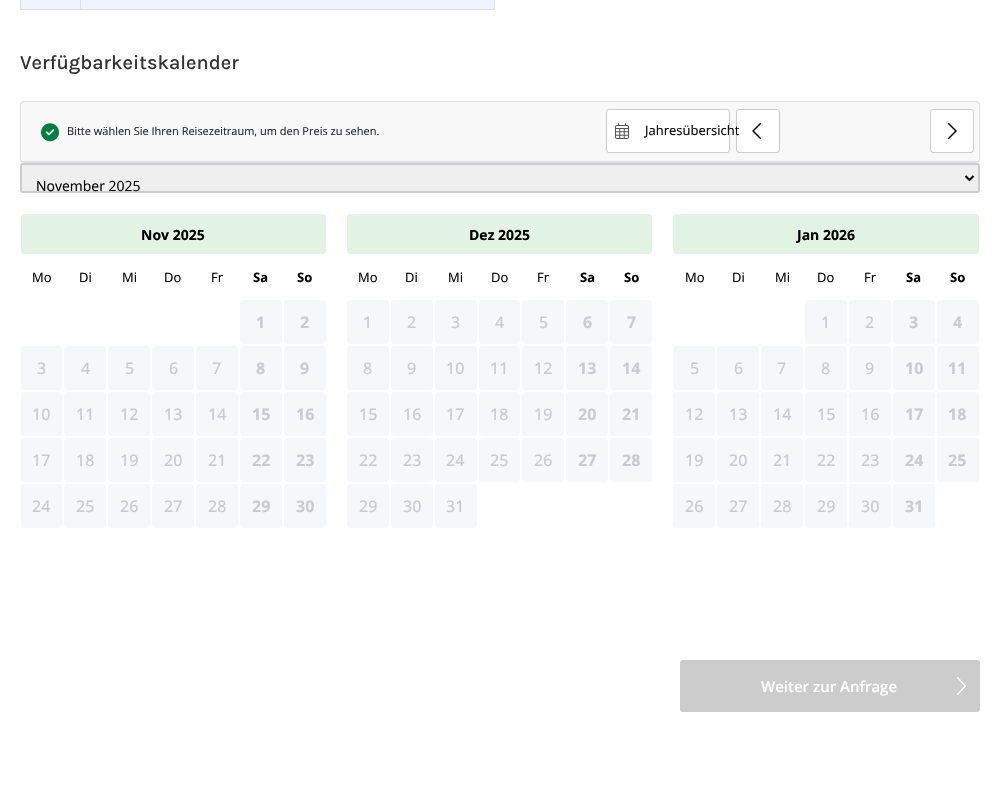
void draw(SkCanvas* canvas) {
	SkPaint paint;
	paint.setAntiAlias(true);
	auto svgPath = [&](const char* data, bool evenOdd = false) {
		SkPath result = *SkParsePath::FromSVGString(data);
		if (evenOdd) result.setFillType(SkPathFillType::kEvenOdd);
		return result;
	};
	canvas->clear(0xffffffff);
	paint.setColor(0xffedf4ff);
	canvas->drawRect(SkRect::MakeXYWH(20.5, -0.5, 474, 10), paint);
	paint.setStroke(true);
	paint.setStrokeWidth(1);
	paint.setColor(0xffdddfe2);
	canvas->drawRect(SkRect::MakeXYWH(20.5, -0.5, 474, 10), paint);
	paint.setStroke(false);
	canvas->drawRect(SkRect::MakeXYWH(80, 0, 1, 9), paint);
	SkFont f1(fontMgr->matchFamilyStyle("Karla", SkFontStyle(500, SkFontStyle::kNormal_Width, SkFontStyle::kUpright_Slant)), 20);
	f1.setSubpixel(true);
	paint.setColor(0xff333333);
	canvas->drawString("Verfügbarkeitskalender", 20, 69, f1, paint);
	paint.setColor(0xfff8f8f8);
	canvas->drawPath(svgPath("M24 102H976C978 102 979 103 979 105V159C979 160 978 161 976 161H24C22 161 21 160 21 159V105C21 103 22 102 24 102Z"), paint);
	paint.setStroke(true);
	paint.setColor(0xffdddfe2);
	canvas->drawRoundRect(SkRect::MakeXYWH(20.5, 101.5, 959, 61), 3.5, 3.5, paint);
	paint.setStroke(false);
	canvas->drawRect(SkRect::MakeXYWH(22, 161, 956, 1), paint);
	canvas->drawImageRect(SkImages::DeferredFromEncodedData(SkData::MakeFromFileName("img1.png")), SkRect::MakeXYWH(41, 123, 18, 19), SkSamplingOptions());
	SkFont f2(fontMgr->matchFamilyStyle("Open Sans", SkFontStyle::Normal()), 11);
	f2.setSubpixel(true);
	paint.setColor(0xff24262c);
	canvas->drawString("Bitte wählen Sie Ihren Reisezeitraum, um den Preis zu sehen.", 67, 135, f2, paint);
	paint.setColor(0xffffffff);
	canvas->drawRoundRect(SkRect::MakeXYWH(606, 109, 124, 44), 3, 3, paint);
	canvas->drawImageRect(SkImages::DeferredFromEncodedData(SkData::MakeFromFileName("img2.png")), SkRect::MakeXYWH(615, 123, 14, 16), SkSamplingOptions());
	paint.setStroke(true);
	paint.setColor(0xffcccccc);
	canvas->drawRoundRect(SkRect::MakeXYWH(606.5, 109.5, 123, 43), 2.5, 2.5, paint);
	paint.setStroke(false);
	paint.setColor(0xffffffff);
	canvas->drawRoundRect(SkRect::MakeXYWH(736.5, 109.5, 43, 43), 2.5, 2.5, paint);
	paint.setStroke(true);
	paint.setColor(0xffcccccc);
	canvas->drawRoundRect(SkRect::MakeXYWH(736.5, 109.5, 43, 43), 2.5, 2.5, paint);
	SkFont f3(fontMgr->matchFamilyStyle("Open Sans", SkFontStyle::Normal()), 13);
	f3.setSubpixel(true);
	paint.setStroke(false);
	paint.setColor(0xff000000);
	canvas->drawString("Jahresübersicht", 645, 135, f3, paint);
	canvas->drawImageRect(SkImages::DeferredFromEncodedData(SkData::MakeFromFileName("img3.png")), SkRect::MakeXYWH(752, 122, 10, 18), SkSamplingOptions());
	paint.setColor(0xffffffff);
	canvas->drawRoundRect(SkRect::MakeXYWH(930.5, 109.5, 43, 43), 2.5, 2.5, paint);
	paint.setStroke(true);
	paint.setColor(0xffcccccc);
	canvas->drawRoundRect(SkRect::MakeXYWH(930.5, 109.5, 43, 43), 2.5, 2.5, paint);
	canvas->drawImageRect(SkImages::DeferredFromEncodedData(SkData::MakeFromFileName("img4.png")), SkRect::MakeXYWH(947, 122, 10, 18), SkSamplingOptions());
	paint.setStroke(false);
	paint.setColor(0xffefefef);
	canvas->drawRoundRect(SkRect::MakeXYWH(21, 164, 958, 28), 2, 2, paint);
	paint.setStroke(true);
	paint.setStrokeWidth(2);
	paint.setColor(0xffcccccc);
	canvas->drawRoundRect(SkRect::MakeXYWH(21, 164, 958, 28), 2, 2, paint);
	paint.setColor(0xff000000);
	canvas->drawPath(svgPath("M965.5 176L969.5 180L973.5 176"), paint);
	SkFont f4(fontMgr->matchFamilyStyle("Open Sans", SkFontStyle::Normal()), 14);
	f4.setSubpixel(true);
	paint.setStroke(false);
	canvas->drawString("November 2025", 36, 191, f4, paint);
	paint.setColor(0xffe2f2e5);
	canvas->drawRoundRect(SkRect::MakeXYWH(21, 214, 305, 40), 4, 4, paint);
	SkFont f5(fontMgr->matchFamilyStyle("Open Sans", SkFontStyle::Bold()), 14);
	f5.setSubpixel(true);
	paint.setColor(0xff000000);
	canvas->drawString("Nov 2025", 141, 240, f5, paint);
	canvas->drawString("Mo", 32, 282, f3, paint);
	canvas->drawString("Di", 79, 282, f3, paint);
	canvas->drawString("Mi", 122, 282, f3, paint);
	canvas->drawString("Do", 164, 282, f3, paint);
	canvas->drawString("Fr", 211, 282, f3, paint);
	SkFont f6(fontMgr->matchFamilyStyle("Open Sans", SkFontStyle::Bold()), 13);
	f6.setSubpixel(true);
	canvas->drawString("Sa", 253, 282, f6, paint);
	canvas->drawString("So", 297, 282, f6, paint);
	paint.setColor(0xfff6f7f8);
	canvas->drawRoundRect(SkRect::MakeXYWH(240, 300, 42, 44), 4, 4, paint);
	SkFont f7(fontMgr->matchFamilyStyle("Open Sans", SkFontStyle::Bold()), 16);
	f7.setSubpixel(true);
	paint.setColor(0xffc9cbcf);
	canvas->drawString("1", 256, 328, f7, paint);
	paint.setColor(0xfff6f7f8);
	canvas->drawRoundRect(SkRect::MakeXYWH(284, 300, 42, 44), 4, 4, paint);
	paint.setColor(0xffc9cbcf);
	canvas->drawString("2", 300, 328, f7, paint);
	paint.setColor(0xfff6f7f8);
	canvas->drawRoundRect(SkRect::MakeXYWH(21, 346, 41, 44), 4, 4, paint);
	SkFont f8(fontMgr->matchFamilyStyle("Open Sans", SkFontStyle(500, SkFontStyle::kNormal_Width, SkFontStyle::kUpright_Slant)), 16);
	f8.setSubpixel(true);
	paint.setColor(0xffc9cbcf);
	canvas->drawString("3", 37, 374, f8, paint);
	paint.setColor(0xfff6f7f8);
	canvas->drawRoundRect(SkRect::MakeXYWH(64, 346, 42, 44), 4, 4, paint);
	paint.setColor(0xffc9cbcf);
	canvas->drawString("4", 81, 374, f8, paint);
	paint.setColor(0xfff6f7f8);
	canvas->drawRoundRect(SkRect::MakeXYWH(108, 346, 42, 44), 4, 4, paint);
	paint.setColor(0xffc9cbcf);
	canvas->drawString("5", 125, 374, f8, paint);
	paint.setColor(0xfff6f7f8);
	canvas->drawRoundRect(SkRect::MakeXYWH(152, 346, 42, 44), 4, 4, paint);
	paint.setColor(0xffc9cbcf);
	canvas->drawString("6", 169, 374, f8, paint);
	paint.setColor(0xfff6f7f8);
	canvas->drawRoundRect(SkRect::MakeXYWH(196, 346, 42, 44), 4, 4, paint);
	paint.setColor(0xffc9cbcf);
	canvas->drawString("7", 212, 374, f8, paint);
	paint.setColor(0xfff6f7f8);
	canvas->drawRoundRect(SkRect::MakeXYWH(240, 346, 42, 44), 4, 4, paint);
	paint.setColor(0xffc9cbcf);
	canvas->drawString("8", 256, 374, f7, paint);
	paint.setColor(0xfff6f7f8);
	canvas->drawRoundRect(SkRect::MakeXYWH(284, 346, 42, 44), 4, 4, paint);
	paint.setColor(0xffc9cbcf);
	canvas->drawString("9", 300, 374, f7, paint);
	paint.setColor(0xfff6f7f8);
	canvas->drawRoundRect(SkRect::MakeXYWH(21, 392, 41, 44), 4, 4, paint);
	paint.setColor(0xffc9cbcf);
	canvas->drawString("10", 32, 420, f8, paint);
	paint.setColor(0xfff6f7f8);
	canvas->drawRoundRect(SkRect::MakeXYWH(64, 392, 42, 44), 4, 4, paint);
	paint.setColor(0xffc9cbcf);
	canvas->drawString("11", 76, 420, f8, paint);
	paint.setColor(0xfff6f7f8);
	canvas->drawRoundRect(SkRect::MakeXYWH(108, 392, 42, 44), 4, 4, paint);
	paint.setColor(0xffc9cbcf);
	canvas->drawString("12", 120, 420, f8, paint);
	paint.setColor(0xfff6f7f8);
	canvas->drawRoundRect(SkRect::MakeXYWH(152, 392, 42, 44), 4, 4, paint);
	paint.setColor(0xffc9cbcf);
	canvas->drawString("13", 164, 420, f8, paint);
	paint.setColor(0xfff6f7f8);
	canvas->drawRoundRect(SkRect::MakeXYWH(196, 392, 42, 44), 4, 4, paint);
	paint.setColor(0xffc9cbcf);
	canvas->drawString("14", 208, 420, f8, paint);
	paint.setColor(0xfff6f7f8);
	canvas->drawRoundRect(SkRect::MakeXYWH(240, 392, 42, 44), 4, 4, paint);
	paint.setColor(0xffc9cbcf);
	canvas->drawString("15", 252, 420, f7, paint);
	paint.setColor(0xfff6f7f8);
	canvas->drawRoundRect(SkRect::MakeXYWH(284, 392, 42, 44), 4, 4, paint);
	paint.setColor(0xffc9cbcf);
	canvas->drawString("16", 296, 420, f7, paint);
	paint.setColor(0xfff6f7f8);
	canvas->drawRoundRect(SkRect::MakeXYWH(21, 438, 41, 44), 4, 4, paint);
	paint.setColor(0xffc9cbcf);
	canvas->drawString("17", 32, 466, f8, paint);
	paint.setColor(0xfff6f7f8);
	canvas->drawRoundRect(SkRect::MakeXYWH(64, 438, 42, 44), 4, 4, paint);
	paint.setColor(0xffc9cbcf);
	canvas->drawString("18", 76, 466, f8, paint);
	paint.setColor(0xfff6f7f8);
	canvas->drawRoundRect(SkRect::MakeXYWH(108, 438, 42, 44), 4, 4, paint);
	paint.setColor(0xffc9cbcf);
	canvas->drawString("19", 120, 466, f8, paint);
	paint.setColor(0xfff6f7f8);
	canvas->drawRoundRect(SkRect::MakeXYWH(152, 438, 42, 44), 4, 4, paint);
	paint.setColor(0xffc9cbcf);
	canvas->drawString("20", 164, 466, f8, paint);
	paint.setColor(0xfff6f7f8);
	canvas->drawRoundRect(SkRect::MakeXYWH(196, 438, 42, 44), 4, 4, paint);
	paint.setColor(0xffc9cbcf);
	canvas->drawString("21", 208, 466, f8, paint);
	paint.setColor(0xfff6f7f8);
	canvas->drawRoundRect(SkRect::MakeXYWH(240, 438, 42, 44), 4, 4, paint);
	paint.setColor(0xffc9cbcf);
	canvas->drawString("22", 252, 466, f7, paint);
	paint.setColor(0xfff6f7f8);
	canvas->drawRoundRect(SkRect::MakeXYWH(284, 438, 42, 44), 4, 4, paint);
	paint.setColor(0xffc9cbcf);
	canvas->drawString("23", 296, 466, f7, paint);
	paint.setColor(0xfff6f7f8);
	canvas->drawRoundRect(SkRect::MakeXYWH(21, 484, 41, 44), 4, 4, paint);
	paint.setColor(0xffc9cbcf);
	canvas->drawString("24", 32, 512, f8, paint);
	paint.setColor(0xfff6f7f8);
	canvas->drawRoundRect(SkRect::MakeXYWH(64, 484, 42, 44), 4, 4, paint);
	paint.setColor(0xffc9cbcf);
	canvas->drawString("25", 76, 512, f8, paint);
	paint.setColor(0xfff6f7f8);
	canvas->drawRoundRect(SkRect::MakeXYWH(108, 484, 42, 44), 4, 4, paint);
	paint.setColor(0xffc9cbcf);
	canvas->drawString("26", 120, 512, f8, paint);
	paint.setColor(0xfff6f7f8);
	canvas->drawRoundRect(SkRect::MakeXYWH(152, 484, 42, 44), 4, 4, paint);
	paint.setColor(0xffc9cbcf);
	canvas->drawString("27", 164, 512, f8, paint);
	paint.setColor(0xfff6f7f8);
	canvas->drawRoundRect(SkRect::MakeXYWH(196, 484, 42, 44), 4, 4, paint);
	paint.setColor(0xffc9cbcf);
	canvas->drawString("28", 208, 512, f8, paint);
	paint.setColor(0xfff6f7f8);
	canvas->drawRoundRect(SkRect::MakeXYWH(240, 484, 42, 44), 4, 4, paint);
	paint.setColor(0xffc9cbcf);
	canvas->drawString("29", 252, 512, f7, paint);
	paint.setColor(0xfff6f7f8);
	canvas->drawRoundRect(SkRect::MakeXYWH(284, 484, 42, 44), 4, 4, paint);
	paint.setColor(0xffc9cbcf);
	canvas->drawString("30", 296, 512, f7, paint);
	paint.setColor(0xffe2f2e5);
	canvas->drawRoundRect(SkRect::MakeXYWH(347, 214, 305, 40), 4, 4, paint);
	paint.setColor(0xff000000);
	canvas->drawString("Dez 2025", 469, 240, f5, paint);
	canvas->drawString("Mo", 358, 282, f3, paint);
	canvas->drawString("Di", 405, 282, f3, paint);
	canvas->drawString("Mi", 448, 282, f3, paint);
	canvas->drawString("Do", 491, 282, f3, paint);
	canvas->drawString("Fr", 537, 282, f3, paint);
	canvas->drawString("Sa", 580, 282, f6, paint);
	canvas->drawString("So", 624, 282, f6, paint);
	paint.setColor(0xfff6f7f8);
	canvas->drawRoundRect(SkRect::MakeXYWH(347, 300, 42, 44), 4, 4, paint);
	paint.setColor(0xffc9cbcf);
	canvas->drawString("1", 363, 328, f8, paint);
	paint.setColor(0xfff6f7f8);
	canvas->drawRoundRect(SkRect::MakeXYWH(391, 300, 42, 44), 4, 4, paint);
	paint.setColor(0xffc9cbcf);
	canvas->drawString("2", 407, 328, f8, paint);
	paint.setColor(0xfff6f7f8);
	canvas->drawRoundRect(SkRect::MakeXYWH(435, 300, 42, 44), 4, 4, paint);
	paint.setColor(0xffc9cbcf);
	canvas->drawString("3", 451, 328, f8, paint);
	paint.setColor(0xfff6f7f8);
	canvas->drawRoundRect(SkRect::MakeXYWH(479, 300, 41, 44), 4, 4, paint);
	paint.setColor(0xffc9cbcf);
	canvas->drawString("4", 495, 328, f8, paint);
	paint.setColor(0xfff6f7f8);
	canvas->drawRoundRect(SkRect::MakeXYWH(522, 300, 42, 44), 4, 4, paint);
	paint.setColor(0xffc9cbcf);
	canvas->drawString("5", 539, 328, f8, paint);
	paint.setColor(0xfff6f7f8);
	canvas->drawRoundRect(SkRect::MakeXYWH(566, 300, 42, 44), 4, 4, paint);
	paint.setColor(0xffc9cbcf);
	canvas->drawString("6", 583, 328, f7, paint);
	paint.setColor(0xfff6f7f8);
	canvas->drawRoundRect(SkRect::MakeXYWH(610, 300, 42, 44), 4, 4, paint);
	paint.setColor(0xffc9cbcf);
	canvas->drawString("7", 627, 328, f7, paint);
	paint.setColor(0xfff6f7f8);
	canvas->drawRoundRect(SkRect::MakeXYWH(347, 346, 42, 44), 4, 4, paint);
	paint.setColor(0xffc9cbcf);
	canvas->drawString("8", 363, 374, f8, paint);
	paint.setColor(0xfff6f7f8);
	canvas->drawRoundRect(SkRect::MakeXYWH(391, 346, 42, 44), 4, 4, paint);
	paint.setColor(0xffc9cbcf);
	canvas->drawString("9", 407, 374, f8, paint);
	paint.setColor(0xfff6f7f8);
	canvas->drawRoundRect(SkRect::MakeXYWH(435, 346, 42, 44), 4, 4, paint);
	paint.setColor(0xffc9cbcf);
	canvas->drawString("10", 446, 374, f8, paint);
	paint.setColor(0xfff6f7f8);
	canvas->drawRoundRect(SkRect::MakeXYWH(479, 346, 41, 44), 4, 4, paint);
	paint.setColor(0xffc9cbcf);
	canvas->drawString("11", 490, 374, f8, paint);
	paint.setColor(0xfff6f7f8);
	canvas->drawRoundRect(SkRect::MakeXYWH(522, 346, 42, 44), 4, 4, paint);
	paint.setColor(0xffc9cbcf);
	canvas->drawString("12", 534, 374, f8, paint);
	paint.setColor(0xfff6f7f8);
	canvas->drawRoundRect(SkRect::MakeXYWH(566, 346, 42, 44), 4, 4, paint);
	paint.setColor(0xffc9cbcf);
	canvas->drawString("13", 578, 374, f7, paint);
	paint.setColor(0xfff6f7f8);
	canvas->drawRoundRect(SkRect::MakeXYWH(610, 346, 42, 44), 4, 4, paint);
	paint.setColor(0xffc9cbcf);
	canvas->drawString("14", 622, 374, f7, paint);
	paint.setColor(0xfff6f7f8);
	canvas->drawRoundRect(SkRect::MakeXYWH(347, 392, 42, 44), 4, 4, paint);
	paint.setColor(0xffc9cbcf);
	canvas->drawString("15", 359, 420, f8, paint);
	paint.setColor(0xfff6f7f8);
	canvas->drawRoundRect(SkRect::MakeXYWH(391, 392, 42, 44), 4, 4, paint);
	paint.setColor(0xffc9cbcf);
	canvas->drawString("16", 403, 420, f8, paint);
	paint.setColor(0xfff6f7f8);
	canvas->drawRoundRect(SkRect::MakeXYWH(435, 392, 42, 44), 4, 4, paint);
	paint.setColor(0xffc9cbcf);
	canvas->drawString("17", 446, 420, f8, paint);
	paint.setColor(0xfff6f7f8);
	canvas->drawRoundRect(SkRect::MakeXYWH(479, 392, 41, 44), 4, 4, paint);
	paint.setColor(0xffc9cbcf);
	canvas->drawString("18", 490, 420, f8, paint);
	paint.setColor(0xfff6f7f8);
	canvas->drawRoundRect(SkRect::MakeXYWH(522, 392, 42, 44), 4, 4, paint);
	paint.setColor(0xffc9cbcf);
	canvas->drawString("19", 534, 420, f8, paint);
	paint.setColor(0xfff6f7f8);
	canvas->drawRoundRect(SkRect::MakeXYWH(566, 392, 42, 44), 4, 4, paint);
	paint.setColor(0xffc9cbcf);
	canvas->drawString("20", 578, 420, f7, paint);
	paint.setColor(0xfff6f7f8);
	canvas->drawRoundRect(SkRect::MakeXYWH(610, 392, 42, 44), 4, 4, paint);
	paint.setColor(0xffc9cbcf);
	canvas->drawString("21", 622, 420, f7, paint);
	paint.setColor(0xfff6f7f8);
	canvas->drawRoundRect(SkRect::MakeXYWH(347, 438, 42, 44), 4, 4, paint);
	paint.setColor(0xffc9cbcf);
	canvas->drawString("22", 359, 466, f8, paint);
	paint.setColor(0xfff6f7f8);
	canvas->drawRoundRect(SkRect::MakeXYWH(391, 438, 42, 44), 4, 4, paint);
	paint.setColor(0xffc9cbcf);
	canvas->drawString("23", 403, 466, f8, paint);
	paint.setColor(0xfff6f7f8);
	canvas->drawRoundRect(SkRect::MakeXYWH(435, 438, 42, 44), 4, 4, paint);
	paint.setColor(0xffc9cbcf);
	canvas->drawString("24", 446, 466, f8, paint);
	paint.setColor(0xfff6f7f8);
	canvas->drawRoundRect(SkRect::MakeXYWH(479, 438, 41, 44), 4, 4, paint);
	paint.setColor(0xffc9cbcf);
	canvas->drawString("25", 490, 466, f8, paint);
	paint.setColor(0xfff6f7f8);
	canvas->drawRoundRect(SkRect::MakeXYWH(522, 438, 42, 44), 4, 4, paint);
	paint.setColor(0xffc9cbcf);
	canvas->drawString("26", 534, 466, f8, paint);
	paint.setColor(0xfff6f7f8);
	canvas->drawRoundRect(SkRect::MakeXYWH(566, 438, 42, 44), 4, 4, paint);
	paint.setColor(0xffc9cbcf);
	canvas->drawString("27", 578, 466, f7, paint);
	paint.setColor(0xfff6f7f8);
	canvas->drawRoundRect(SkRect::MakeXYWH(610, 438, 42, 44), 4, 4, paint);
	paint.setColor(0xffc9cbcf);
	canvas->drawString("28", 622, 466, f7, paint);
	paint.setColor(0xfff6f7f8);
	canvas->drawRoundRect(SkRect::MakeXYWH(347, 484, 42, 44), 4, 4, paint);
	paint.setColor(0xffc9cbcf);
	canvas->drawString("29", 359, 512, f8, paint);
	paint.setColor(0xfff6f7f8);
	canvas->drawRoundRect(SkRect::MakeXYWH(391, 484, 42, 44), 4, 4, paint);
	paint.setColor(0xffc9cbcf);
	canvas->drawString("30", 403, 512, f8, paint);
	paint.setColor(0xfff6f7f8);
	canvas->drawRoundRect(SkRect::MakeXYWH(435, 484, 42, 44), 4, 4, paint);
	paint.setColor(0xffc9cbcf);
	canvas->drawString("31", 446, 512, f8, paint);
	paint.setColor(0xffe2f2e5);
	canvas->drawRoundRect(SkRect::MakeXYWH(673, 214, 306, 40), 4, 4, paint);
	paint.setColor(0xff000000);
	canvas->drawString("Jan 2026", 797, 240, f5, paint);
	canvas->drawString("Mo", 685, 282, f3, paint);
	canvas->drawString("Di", 732, 282, f3, paint);
	canvas->drawString("Mi", 775, 282, f3, paint);
	canvas->drawString("Do", 817, 282, f3, paint);
	canvas->drawString("Fr", 864, 282, f3, paint);
	canvas->drawString("Sa", 906, 282, f6, paint);
	canvas->drawString("So", 950, 282, f6, paint);
	paint.setColor(0xfff6f7f8);
	canvas->drawRoundRect(SkRect::MakeXYWH(805, 300, 42, 44), 4, 4, paint);
	paint.setColor(0xffc9cbcf);
	canvas->drawString("1", 821, 328, f8, paint);
	paint.setColor(0xfff6f7f8);
	canvas->drawRoundRect(SkRect::MakeXYWH(849, 300, 42, 44), 4, 4, paint);
	paint.setColor(0xffc9cbcf);
	canvas->drawString("2", 865, 328, f8, paint);
	paint.setColor(0xfff6f7f8);
	canvas->drawRoundRect(SkRect::MakeXYWH(893, 300, 42, 44), 4, 4, paint);
	paint.setColor(0xffc9cbcf);
	canvas->drawString("3", 909, 328, f7, paint);
	paint.setColor(0xfff6f7f8);
	canvas->drawRoundRect(SkRect::MakeXYWH(937, 300, 42, 44), 4, 4, paint);
	paint.setColor(0xffc9cbcf);
	canvas->drawString("4", 953, 328, f7, paint);
	paint.setColor(0xfff6f7f8);
	canvas->drawRoundRect(SkRect::MakeXYWH(673, 346, 42, 44), 4, 4, paint);
	paint.setColor(0xffc9cbcf);
	canvas->drawString("5", 690, 374, f8, paint);
	paint.setColor(0xfff6f7f8);
	canvas->drawRoundRect(SkRect::MakeXYWH(717, 346, 42, 44), 4, 4, paint);
	paint.setColor(0xffc9cbcf);
	canvas->drawString("6", 734, 374, f8, paint);
	paint.setColor(0xfff6f7f8);
	canvas->drawRoundRect(SkRect::MakeXYWH(761, 346, 42, 44), 4, 4, paint);
	paint.setColor(0xffc9cbcf);
	canvas->drawString("7", 777, 374, f8, paint);
	paint.setColor(0xfff6f7f8);
	canvas->drawRoundRect(SkRect::MakeXYWH(805, 346, 42, 44), 4, 4, paint);
	paint.setColor(0xffc9cbcf);
	canvas->drawString("8", 821, 374, f8, paint);
	paint.setColor(0xfff6f7f8);
	canvas->drawRoundRect(SkRect::MakeXYWH(849, 346, 42, 44), 4, 4, paint);
	paint.setColor(0xffc9cbcf);
	canvas->drawString("9", 865, 374, f8, paint);
	paint.setColor(0xfff6f7f8);
	canvas->drawRoundRect(SkRect::MakeXYWH(893, 346, 42, 44), 4, 4, paint);
	paint.setColor(0xffc9cbcf);
	canvas->drawString("10", 905, 374, f7, paint);
	paint.setColor(0xfff6f7f8);
	canvas->drawRoundRect(SkRect::MakeXYWH(937, 346, 42, 44), 4, 4, paint);
	paint.setColor(0xffc9cbcf);
	canvas->drawString("11", 948, 374, f7, paint);
	paint.setColor(0xfff6f7f8);
	canvas->drawRoundRect(SkRect::MakeXYWH(673, 392, 42, 44), 4, 4, paint);
	paint.setColor(0xffc9cbcf);
	canvas->drawString("12", 685, 420, f8, paint);
	paint.setColor(0xfff6f7f8);
	canvas->drawRoundRect(SkRect::MakeXYWH(717, 392, 42, 44), 4, 4, paint);
	paint.setColor(0xffc9cbcf);
	canvas->drawString("13", 729, 420, f8, paint);
	paint.setColor(0xfff6f7f8);
	canvas->drawRoundRect(SkRect::MakeXYWH(761, 392, 42, 44), 4, 4, paint);
	paint.setColor(0xffc9cbcf);
	canvas->drawString("14", 773, 420, f8, paint);
	paint.setColor(0xfff6f7f8);
	canvas->drawRoundRect(SkRect::MakeXYWH(805, 392, 42, 44), 4, 4, paint);
	paint.setColor(0xffc9cbcf);
	canvas->drawString("15", 817, 420, f8, paint);
	paint.setColor(0xfff6f7f8);
	canvas->drawRoundRect(SkRect::MakeXYWH(849, 392, 42, 44), 4, 4, paint);
	paint.setColor(0xffc9cbcf);
	canvas->drawString("16", 861, 420, f8, paint);
	paint.setColor(0xfff6f7f8);
	canvas->drawRoundRect(SkRect::MakeXYWH(893, 392, 42, 44), 4, 4, paint);
	paint.setColor(0xffc9cbcf);
	canvas->drawString("17", 905, 420, f7, paint);
	paint.setColor(0xfff6f7f8);
	canvas->drawRoundRect(SkRect::MakeXYWH(937, 392, 42, 44), 4, 4, paint);
	paint.setColor(0xffc9cbcf);
	canvas->drawString("18", 948, 420, f7, paint);
	paint.setColor(0xfff6f7f8);
	canvas->drawRoundRect(SkRect::MakeXYWH(673, 438, 42, 44), 4, 4, paint);
	paint.setColor(0xffc9cbcf);
	canvas->drawString("19", 685, 466, f8, paint);
	paint.setColor(0xfff6f7f8);
	canvas->drawRoundRect(SkRect::MakeXYWH(717, 438, 42, 44), 4, 4, paint);
	paint.setColor(0xffc9cbcf);
	canvas->drawString("20", 729, 466, f8, paint);
	paint.setColor(0xfff6f7f8);
	canvas->drawRoundRect(SkRect::MakeXYWH(761, 438, 42, 44), 4, 4, paint);
	paint.setColor(0xffc9cbcf);
	canvas->drawString("21", 773, 466, f8, paint);
	paint.setColor(0xfff6f7f8);
	canvas->drawRoundRect(SkRect::MakeXYWH(805, 438, 42, 44), 4, 4, paint);
	paint.setColor(0xffc9cbcf);
	canvas->drawString("22", 817, 466, f8, paint);
	paint.setColor(0xfff6f7f8);
	canvas->drawRoundRect(SkRect::MakeXYWH(849, 438, 42, 44), 4, 4, paint);
	paint.setColor(0xffc9cbcf);
	canvas->drawString("23", 861, 466, f8, paint);
	paint.setColor(0xfff6f7f8);
	canvas->drawRoundRect(SkRect::MakeXYWH(893, 438, 42, 44), 4, 4, paint);
	paint.setColor(0xffc9cbcf);
	canvas->drawString("24", 905, 466, f7, paint);
	paint.setColor(0xfff6f7f8);
	canvas->drawRoundRect(SkRect::MakeXYWH(937, 438, 42, 44), 4, 4, paint);
	paint.setColor(0xffc9cbcf);
	canvas->drawString("25", 948, 466, f7, paint);
	paint.setColor(0xfff6f7f8);
	canvas->drawRoundRect(SkRect::MakeXYWH(673, 484, 42, 44), 4, 4, paint);
	paint.setColor(0xffc9cbcf);
	canvas->drawString("26", 685, 512, f8, paint);
	paint.setColor(0xfff6f7f8);
	canvas->drawRoundRect(SkRect::MakeXYWH(717, 484, 42, 44), 4, 4, paint);
	paint.setColor(0xffc9cbcf);
	canvas->drawString("27", 729, 512, f8, paint);
	paint.setColor(0xfff6f7f8);
	canvas->drawRoundRect(SkRect::MakeXYWH(761, 484, 42, 44), 4, 4, paint);
	paint.setColor(0xffc9cbcf);
	canvas->drawString("28", 773, 512, f8, paint);
	paint.setColor(0xfff6f7f8);
	canvas->drawRoundRect(SkRect::MakeXYWH(805, 484, 42, 44), 4, 4, paint);
	paint.setColor(0xffc9cbcf);
	canvas->drawString("29", 817, 512, f8, paint);
	paint.setColor(0xfff6f7f8);
	canvas->drawRoundRect(SkRect::MakeXYWH(849, 484, 42, 44), 4, 4, paint);
	paint.setColor(0xffc9cbcf);
	canvas->drawString("30", 861, 512, f8, paint);
	paint.setColor(0xfff6f7f8);
	canvas->drawRoundRect(SkRect::MakeXYWH(893, 484, 42, 44), 4, 4, paint);
	paint.setColor(0xffc9cbcf);
	canvas->drawString("31", 905, 512, f7, paint);
	paint.setColor(0xffcccccc);
	canvas->drawRoundRect(SkRect::MakeXYWH(680, 660, 300, 52), 3, 3, paint);
	canvas->drawImageRect(SkImages::DeferredFromEncodedData(SkData::MakeFromFileName("img5.png")), SkRect::MakeXYWH(957, 677, 9, 18), SkSamplingOptions());
	SkFont f9(fontMgr->matchFamilyStyle("Open Sans", SkFontStyle(600, SkFontStyle::kNormal_Width, SkFontStyle::kUpright_Slant)), 15);
	f9.setSubpixel(true);
	paint.setColor(0xffffffff);
	canvas->drawString("Weiter zur Anfrage", 761, 692, f9, paint);
}
